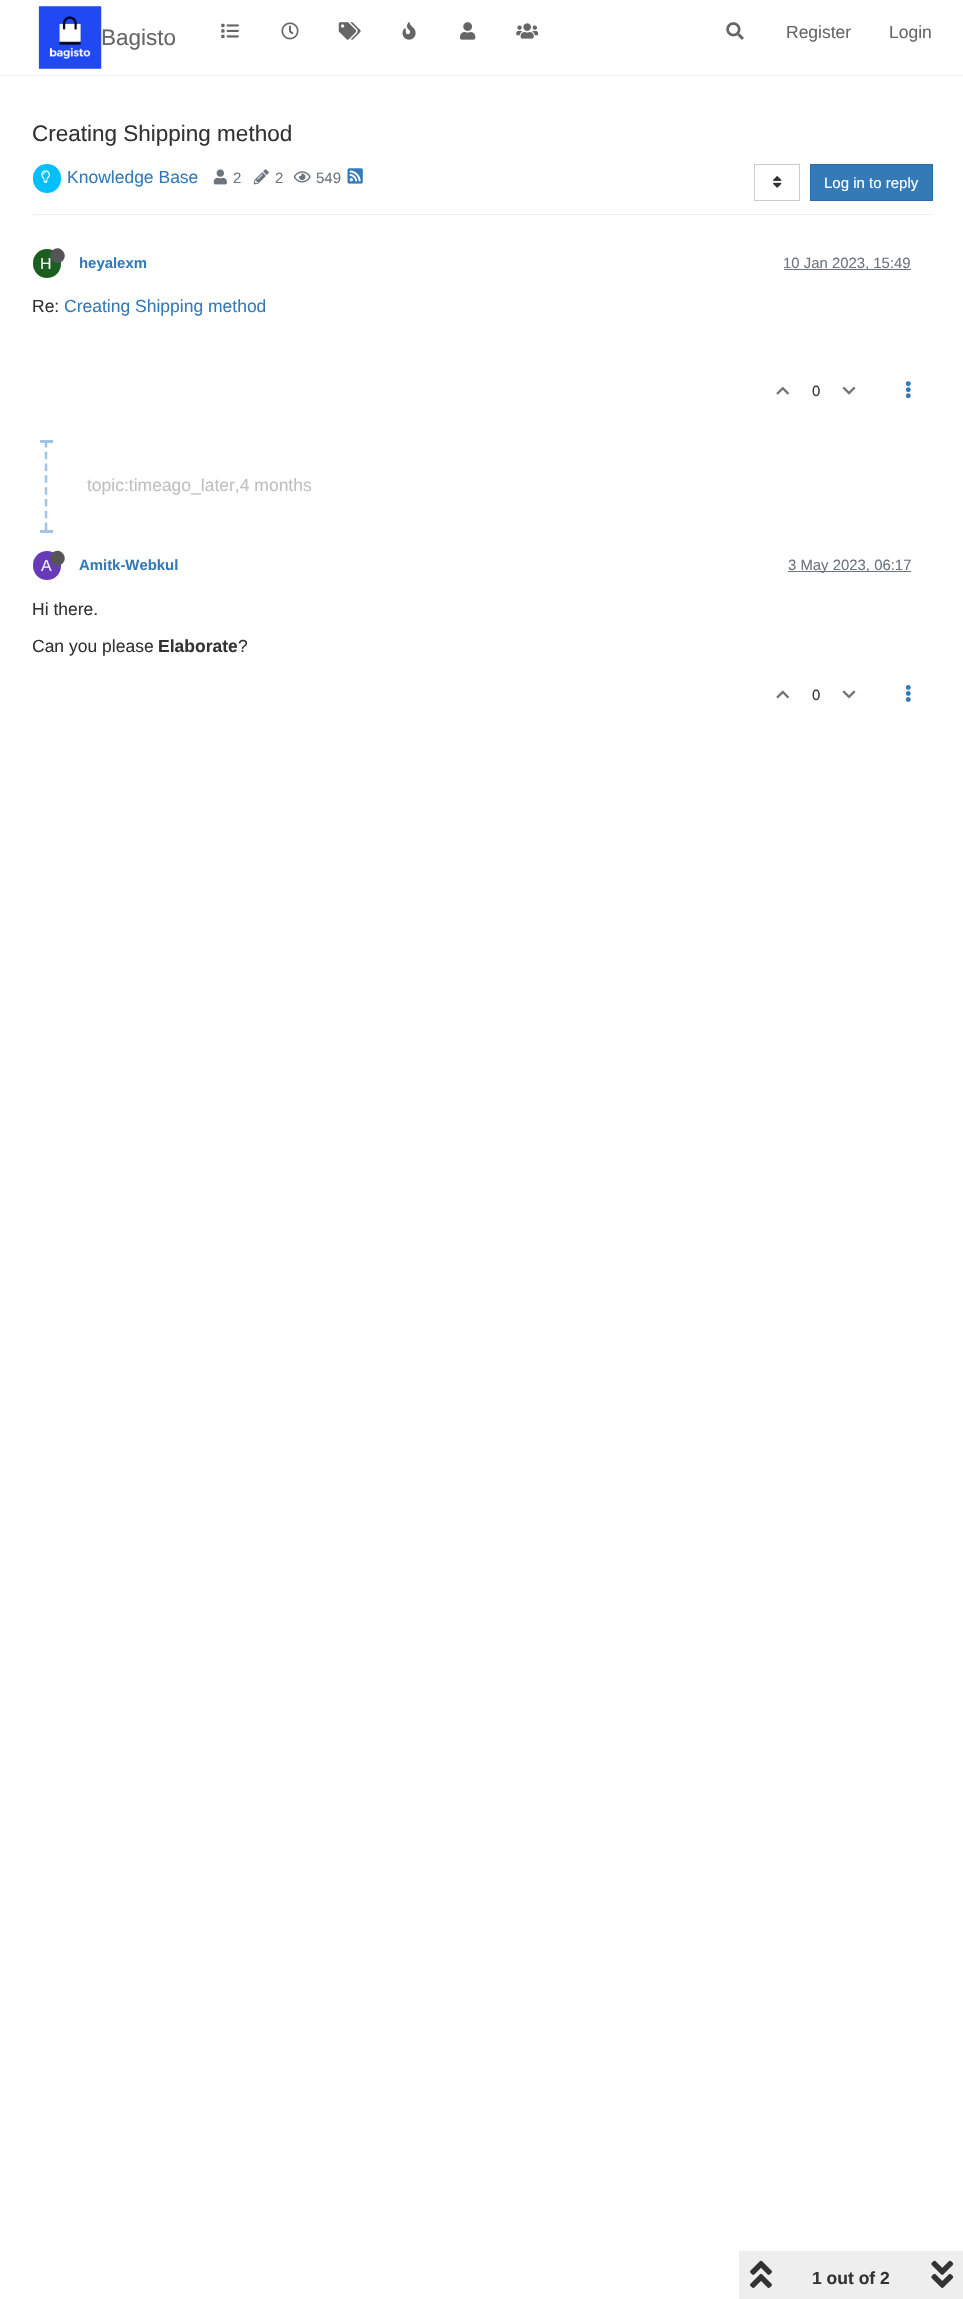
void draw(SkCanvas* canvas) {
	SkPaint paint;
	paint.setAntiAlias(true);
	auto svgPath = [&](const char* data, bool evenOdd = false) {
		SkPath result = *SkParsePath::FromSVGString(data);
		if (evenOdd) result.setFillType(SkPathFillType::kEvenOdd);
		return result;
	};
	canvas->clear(0xffffffff);
	paint.setColor(0xffeeeeee);
	canvas->drawRect(SkRect::MakeXYWH(0, 75, 963, 1), paint);
	canvas->drawImageRect(SkImages::DeferredFromEncodedData(SkData::MakeFromFileName("img1.png")), SkRect::MakeXYWH(38, 6, 64, 63), SkSamplingOptions());
	SkFont f1(fontMgr->matchFamilyStyle("Liberation Sans", SkFontStyle::Normal()), 22.5);
	f1.setSubpixel(true);
	paint.setColor(0xff666666);
	canvas->drawString("Bagisto", 101, 45, f1, paint);
	canvas->drawImageRect(SkImages::DeferredFromEncodedData(SkData::MakeFromFileName("img2.png")), SkRect::MakeXYWH(221, 23, 18, 16), SkSamplingOptions());
	canvas->drawImageRect(SkImages::DeferredFromEncodedData(SkData::MakeFromFileName("img3.png")), SkRect::MakeXYWH(281, 22, 18, 18), SkSamplingOptions());
	canvas->drawImageRect(SkImages::DeferredFromEncodedData(SkData::MakeFromFileName("img4.png")), SkRect::MakeXYWH(338, 22, 23, 18), SkSamplingOptions());
	canvas->drawImageRect(SkImages::DeferredFromEncodedData(SkData::MakeFromFileName("img5.png")), SkRect::MakeXYWH(402, 22, 14, 18), SkSamplingOptions());
	canvas->drawImageRect(SkImages::DeferredFromEncodedData(SkData::MakeFromFileName("img6.png")), SkRect::MakeXYWH(460, 22, 16, 18), SkSamplingOptions());
	canvas->drawImageRect(SkImages::DeferredFromEncodedData(SkData::MakeFromFileName("img7.png")), SkRect::MakeXYWH(516, 23, 23, 16), SkSamplingOptions());
	canvas->drawImageRect(SkImages::DeferredFromEncodedData(SkData::MakeFromFileName("img8.png")), SkRect::MakeXYWH(726, 22, 18, 18), SkSamplingOptions());
	SkFont f2(fontMgr->matchFamilyStyle("Liberation Sans", SkFontStyle::Normal()), 17.5);
	f2.setSubpixel(true);
	canvas->drawString("Register", 786, 38, f2, paint);
	canvas->drawString("Login", 889, 38, f2, paint);
	paint.setColor(0xff333333);
	canvas->drawString("Creating Shipping method", 32, 141, f1, paint);
	paint.setColor(0xffeeeeee);
	canvas->drawRect(SkRect::MakeXYWH(33, 214, 900, 1), paint);
	paint.setColor(0xff00bfff);
	canvas->drawRoundRect(SkRect::MakeXYWH(33, 164, 28, 29), 14, 14, paint);
	canvas->drawImageRect(SkImages::DeferredFromEncodedData(SkData::MakeFromFileName("img9.png")), SkRect::MakeXYWH(41, 170, 9, 13), SkSamplingOptions());
	paint.setColor(0xff337ab7);
	canvas->drawString("Knowledge Base", 67, 183, f2, paint);
	canvas->drawImageRect(SkImages::DeferredFromEncodedData(SkData::MakeFromFileName("img10.png")), SkRect::MakeXYWH(213, 169, 14, 16), SkSamplingOptions());
	SkFont f3(fontMgr->matchFamilyStyle("Liberation Sans", SkFontStyle::Normal()), 15);
	f3.setSubpixel(true);
	paint.setColor(0xff6c757d);
	canvas->drawString("2", 233, 183, f3, paint);
	canvas->drawImageRect(SkImages::DeferredFromEncodedData(SkData::MakeFromFileName("img11.png")), SkRect::MakeXYWH(253, 169, 16, 16), SkSamplingOptions());
	canvas->drawString("2", 275, 183, f3, paint);
	canvas->drawImageRect(SkImages::DeferredFromEncodedData(SkData::MakeFromFileName("img12.png")), SkRect::MakeXYWH(293, 171, 18, 12), SkSamplingOptions());
	canvas->drawString("549", 316, 183, f3, paint);
	canvas->drawImageRect(SkImages::DeferredFromEncodedData(SkData::MakeFromFileName("img13.png")), SkRect::MakeXYWH(347, 168, 16, 16), SkSamplingOptions());
	paint.setStroke(true);
	paint.setStrokeWidth(1);
	paint.setColor(0xffcccccc);
	canvas->drawRect(SkRect::MakeXYWH(754.5, 164.5, 45, 36), paint);
	canvas->drawImageRect(SkImages::DeferredFromEncodedData(SkData::MakeFromFileName("img14.png")), SkRect::MakeXYWH(773, 176, 9, 12), SkSamplingOptions());
	paint.setStroke(false);
	paint.setColor(0xff337ab7);
	canvas->drawRect(SkRect::MakeXYWH(810.5, 164.5, 122, 36), paint);
	paint.setStroke(true);
	paint.setColor(0xff2e6da4);
	canvas->drawRect(SkRect::MakeXYWH(810.5, 164.5, 122, 36), paint);
	paint.setStroke(false);
	paint.setColor(0xffffffff);
	canvas->drawString("Log in to reply", 824, 188, f3, paint);
	paint.setColor(0xff1b5e20);
	canvas->drawRoundRect(SkRect::MakeXYWH(33, 249, 28, 29), 14, 14, paint);
	SkFont f4(fontMgr->matchFamilyStyle("Liberation Sans", SkFontStyle::Normal()), 16);
	f4.setSubpixel(true);
	paint.setColor(0xffeeeeee);
	canvas->drawString("H", 40, 269, f4, paint);
	paint.setColor(0xff555555);
	canvas->drawPath(svgPath("M52.5 250.5C59 243.5 69.5 254 62.5 261C56 267.5 45.5 257 52.5 250.5Z"), paint);
	SkFont f5(fontMgr->matchFamilyStyle("Liberation Sans", SkFontStyle::Bold()), 14.9);
	f5.setSubpixel(true);
	paint.setColor(0xff337ab7);
	canvas->drawString("heyalexm", 79, 268, f5, paint);
	paint.setColor(0xff6c757d);
	canvas->drawRect(SkRect::MakeXYWH(784, 269, 127, 1), paint);
	SkFont f6(fontMgr->matchFamilyStyle("Liberation Sans", SkFontStyle::Normal()), 14.9);
	f6.setSubpixel(true);
	canvas->drawString("10 Jan 2023, 15:49", 783, 268, f6, paint);
	paint.setColor(0xff333333);
	canvas->drawString("Re:", 32, 312, f2, paint);
	paint.setColor(0xff337ab7);
	canvas->drawString("Creating Shipping method", 64, 312, f2, paint);
	canvas->drawImageRect(SkImages::DeferredFromEncodedData(SkData::MakeFromFileName("img15.png")), SkRect::MakeXYWH(776, 386, 13, 9), SkSamplingOptions());
	paint.setColor(0xff333333);
	canvas->drawString("0", 812, 396, f6, paint);
	canvas->drawImageRect(SkImages::DeferredFromEncodedData(SkData::MakeFromFileName("img16.png")), SkRect::MakeXYWH(842, 386, 14, 9), SkSamplingOptions());
	canvas->drawImageRect(SkImages::DeferredFromEncodedData(SkData::MakeFromFileName("img17.png")), SkRect::MakeXYWH(905, 381, 6, 18), SkSamplingOptions());
	paint.setStroke(true);
	paint.setStrokeWidth(2.5);
	paint.setColor(0xffa0c4e4);
	paint.setPathEffect(SkDashPathEffect::Make({{7.5f, 4.29f}}, 0));
	canvas->drawPath(svgPath("M46 440V530"), paint);
	paint.setPathEffect(nullptr);
	paint.setStroke(false);
	canvas->drawRect(SkRect::MakeXYWH(40, 440, 13, 3), paint);
	paint.setColor(0xffbfbfbf);
	canvas->drawString("topic:timeago_later,4 months", 87, 491, f2, paint);
	paint.setColor(0xffa0c4e4);
	canvas->drawRect(SkRect::MakeXYWH(40, 530, 13, 3), paint);
	paint.setColor(0xff673ab7);
	canvas->drawRoundRect(SkRect::MakeXYWH(33, 551, 28, 29), 14, 14, paint);
	paint.setColor(0xffeeeeee);
	canvas->drawString("A", 41, 571, f4, paint);
	paint.setColor(0xff555555);
	canvas->drawPath(svgPath("M52.5 553C59 546 69.5 556.5 62.5 563.5C56 570 45.5 559.5 52.5 553Z"), paint);
	paint.setColor(0xff337ab7);
	canvas->drawString("Amitk-Webkul", 79, 570, f5, paint);
	paint.setColor(0xff6c757d);
	canvas->drawRect(SkRect::MakeXYWH(788, 571, 123, 1), paint);
	canvas->drawString("3 May 2023, 06:17", 788, 570, f6, paint);
	paint.setColor(0xff333333);
	canvas->drawString("Hi there.", 32, 615, f2, paint);
	canvas->save();
	canvas->clipRect(SkRect::MakeXYWH(33, 596, 900, 77));
	canvas->drawString("Can you please", 32, 652, f2, paint);
	canvas->restore();
	SkFont f7(fontMgr->matchFamilyStyle("Liberation Sans", SkFontStyle::Bold()), 17.5);
	f7.setSubpixel(true);
	canvas->drawString("Elaborate", 158, 652, f7, paint);
	canvas->drawString("?", 238, 652, f2, paint);
	canvas->drawImageRect(SkImages::DeferredFromEncodedData(SkData::MakeFromFileName("img18.png")), SkRect::MakeXYWH(776, 690, 13, 9), SkSamplingOptions());
	canvas->drawString("0", 812, 700, f6, paint);
	canvas->drawImageRect(SkImages::DeferredFromEncodedData(SkData::MakeFromFileName("img19.png")), SkRect::MakeXYWH(842, 690, 14, 9), SkSamplingOptions());
	canvas->drawImageRect(SkImages::DeferredFromEncodedData(SkData::MakeFromFileName("img20.png")), SkRect::MakeXYWH(905, 685, 6, 17), SkSamplingOptions());
	paint.setColor(0xffeeeeee);
	canvas->drawRect(SkRect::MakeXYWH(739, 2251, 224, 48), paint);
	canvas->drawImageRect(SkImages::DeferredFromEncodedData(SkData::MakeFromFileName("img21.png")), SkRect::MakeXYWH(750, 2260, 22, 28), SkSamplingOptions());
	paint.setColor(0xff333333);
	canvas->drawString("1 out of 2", 812, 2284, f7, paint);
	canvas->drawImageRect(SkImages::DeferredFromEncodedData(SkData::MakeFromFileName("img22.png")), SkRect::MakeXYWH(931, 2260, 23, 28), SkSamplingOptions());
}
